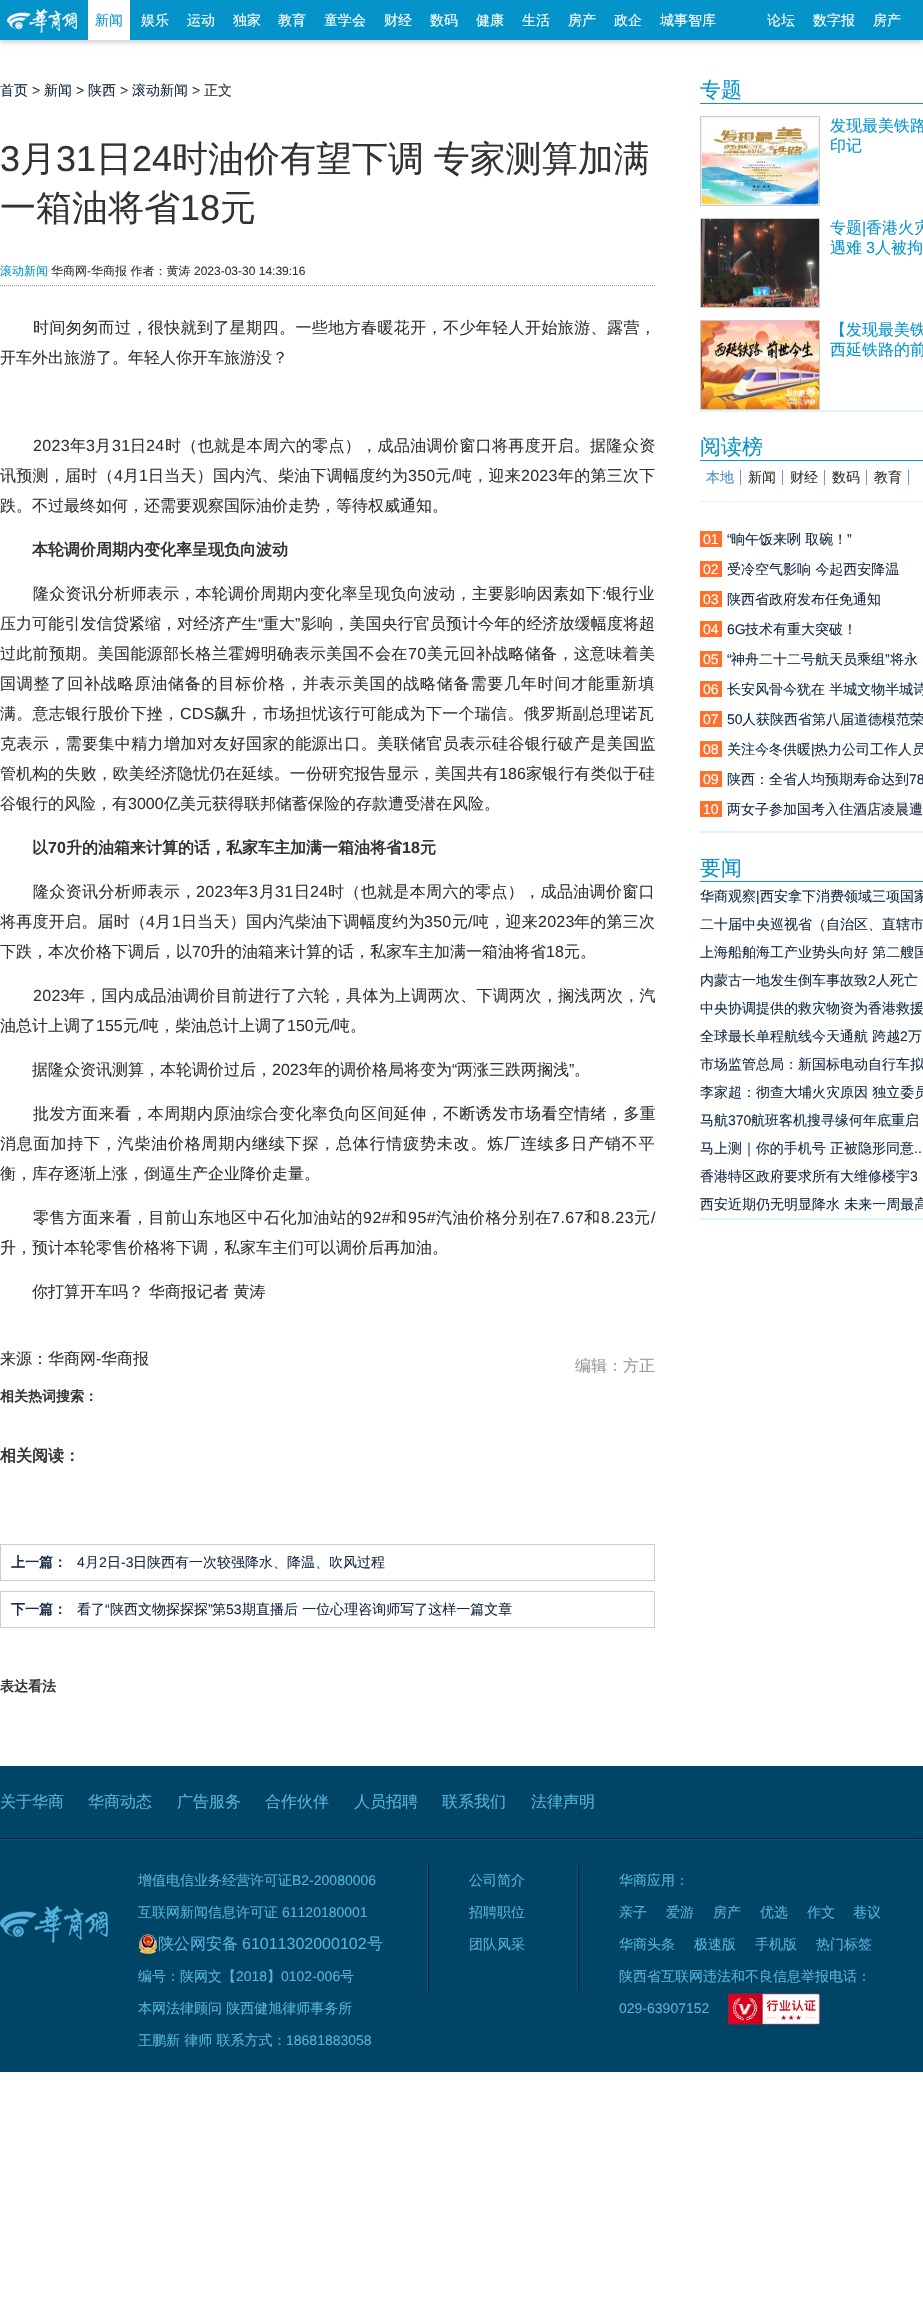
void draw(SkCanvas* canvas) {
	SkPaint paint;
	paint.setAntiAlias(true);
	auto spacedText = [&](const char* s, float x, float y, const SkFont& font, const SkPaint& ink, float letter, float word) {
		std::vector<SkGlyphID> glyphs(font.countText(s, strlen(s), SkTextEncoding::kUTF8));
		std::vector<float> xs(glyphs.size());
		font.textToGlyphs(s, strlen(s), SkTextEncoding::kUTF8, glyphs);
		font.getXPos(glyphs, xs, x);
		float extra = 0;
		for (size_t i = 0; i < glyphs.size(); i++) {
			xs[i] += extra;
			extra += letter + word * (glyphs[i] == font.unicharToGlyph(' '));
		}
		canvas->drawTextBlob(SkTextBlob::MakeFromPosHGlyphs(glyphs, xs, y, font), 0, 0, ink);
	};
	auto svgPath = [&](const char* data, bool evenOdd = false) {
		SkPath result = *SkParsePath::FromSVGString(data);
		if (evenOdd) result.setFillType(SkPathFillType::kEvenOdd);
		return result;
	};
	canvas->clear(0xffffffff);
	paint.setColor(0xffcccccc);
	paint.setMaskFilter(SkMaskFilter::MakeBlur(kNormal_SkBlurStyle, 2.5));
	canvas->drawRect(SkRect::MakeXYWH(0, 2, 923, 40), paint);
	paint.setMaskFilter(nullptr);
	paint.setColor(0xff0494c9);
	canvas->drawRect(SkRect::MakeXYWH(0, 0, 923, 40), paint);
	canvas->drawImageRect(SkImages::DeferredFromEncodedData(SkData::MakeFromFileName("img1.png")), SkRect::MakeXYWH(7, 9, 70, 24), SkSamplingOptions());
	paint.setColor(0xffffffff);
	canvas->drawRect(SkRect::MakeXYWH(88, 0, 42, 40), paint);
	SkFont f1(fontMgr->matchFamilyStyle("WenQuanYi Zen Hei", SkFontStyle(500, SkFontStyle::kNormal_Width, SkFontStyle::kUpright_Slant)), 14);
	f1.setSubpixel(true);
	paint.setColor(0xff0895cf);
	canvas->drawString("新闻", 95, 25, f1, paint);
	paint.setColor(0xffffffff);
	canvas->drawString("娱乐", 141, 25, f1, paint);
	canvas->drawString("运动", 187, 25, f1, paint);
	canvas->drawString("独家", 233, 25, f1, paint);
	canvas->drawString("教育", 278, 25, f1, paint);
	canvas->drawString("童学会", 324, 25, f1, paint);
	canvas->drawString("财经", 384, 25, f1, paint);
	canvas->drawString("数码", 430, 25, f1, paint);
	canvas->drawString("健康", 476, 25, f1, paint);
	canvas->drawString("生活", 522, 25, f1, paint);
	canvas->drawString("房产", 568, 25, f1, paint);
	canvas->drawString("政企", 614, 25, f1, paint);
	canvas->drawString("城事智库", 660, 25, f1, paint);
	canvas->drawString("论坛", 767, 25, f1, paint);
	canvas->drawString("数字报", 813, 25, f1, paint);
	canvas->drawString("房产", 873, 25, f1, paint);
	paint.setColor(0xff172c45);
	canvas->drawString("首页", 0, 95, f1, paint);
	SkFont f2(fontMgr->matchFamilyStyle("Liberation Sans", SkFontStyle::Normal()), 14);
	f2.setSubpixel(true);
	paint.setColor(0xff333333);
	canvas->drawString(">", 32, 95, f2, paint);
	paint.setColor(0xff172c45);
	canvas->drawString("新闻", 44, 95, f1, paint);
	paint.setColor(0xff333333);
	canvas->drawString(">", 76, 95, f2, paint);
	paint.setColor(0xff172c45);
	canvas->drawString("陕西", 88, 95, f1, paint);
	paint.setColor(0xff333333);
	canvas->drawString(">", 120, 95, f2, paint);
	paint.setColor(0xff172c45);
	canvas->drawString("滚动新闻", 132, 95, f1, paint);
	paint.setColor(0xff333333);
	canvas->drawString(">", 192, 95, f2, paint);
	canvas->drawString("正文", 204, 95, f1, paint);
	SkFont f3(fontMgr->matchFamilyStyle("Liberation Sans", SkFontStyle::Normal()), 36);
	f3.setSubpixel(true);
	canvas->drawString("3", 0, 171, f3, paint);
	SkFont f4(fontMgr->matchFamilyStyle("WenQuanYi Zen Hei", SkFontStyle(500, SkFontStyle::kNormal_Width, SkFontStyle::kUpright_Slant)), 36);
	f4.setSubpixel(true);
	canvas->drawString("月", 20, 171, f4, paint);
	canvas->drawString("31", 56, 171, f3, paint);
	canvas->drawString("日", 96, 171, f4, paint);
	canvas->drawString("24", 132, 171, f3, paint);
	spacedText("时油价有望下调 专家测算加满", 172, 171, f4, paint, 0, -1);
	canvas->drawString("一箱油将省", 0, 220, f4, paint);
	canvas->drawString("18", 180, 220, f3, paint);
	canvas->drawString("元", 220, 220, f4, paint);
	paint.setStroke(true);
	paint.setStrokeWidth(1);
	paint.setColor(0xff9e9e9e);
	paint.setPathEffect(SkDashPathEffect::Make({{1, 1}}, 0));
	canvas->drawPath(svgPath("M0 285.5H655"), paint);
	paint.setPathEffect(nullptr);
	SkFont f5(fontMgr->matchFamilyStyle("WenQuanYi Zen Hei", SkFontStyle(500, SkFontStyle::kNormal_Width, SkFontStyle::kUpright_Slant)), 12);
	f5.setSubpixel(true);
	paint.setStroke(false);
	paint.setColor(0xff0895cf);
	canvas->drawString("滚动新闻", 0, 275, f5, paint);
	paint.setColor(0xff333333);
	canvas->drawString("华商网", 51, 275, f5, paint);
	SkFont f6(fontMgr->matchFamilyStyle("Liberation Sans", SkFontStyle::Normal()), 12);
	f6.setSubpixel(true);
	canvas->drawString("-", 87, 275, f6, paint);
	canvas->drawString("华商报 作者：黄涛", 91, 275, f5, paint);
	canvas->drawString("2023-03-30 14:39:16", 194, 275, f6, paint);
	SkFont f7(fontMgr->matchFamilyStyle("WenQuanYi Zen Hei", SkFontStyle(500, SkFontStyle::kNormal_Width, SkFontStyle::kUpright_Slant)), 16);
	f7.setSubpixel(true);
	spacedText("时间匆匆而过，很快就到了星期四。一些地方春暖花开，不少年轻人开始旅游、露营，", 33, 333, f7, paint, 0.4, 0);
	canvas->drawString("开车外出旅游了。年轻人你开车旅游没？", 0, 363, f7, paint);
	SkFont f8(fontMgr->matchFamilyStyle("Liberation Sans", SkFontStyle::Normal()), 16);
	f8.setSubpixel(true);
	spacedText("2023", 33, 451, f8, paint, 0.35, 0);
	spacedText("年", 70, 451, f7, paint, 0.35, 0);
	spacedText("3", 86, 451, f8, paint, 0.35, 0);
	spacedText("月", 95, 451, f7, paint, 0.35, 0);
	spacedText("31", 112, 451, f8, paint, 0.35, 0);
	spacedText("日", 130, 451, f7, paint, 0.35, 0);
	spacedText("24", 146, 451, f8, paint, 0.35, 0);
	spacedText("时（也就是本周六的零点），成品油调价窗口将再度开启。据隆众资", 165, 451, f7, paint, 0.35, 0);
	spacedText("讯预测，届时（", 0, 481, f7, paint, 0.25, 0);
	spacedText("4", 114, 481, f8, paint, 0.25, 0);
	spacedText("月", 123, 481, f7, paint, 0.25, 0);
	spacedText("1", 139, 481, f8, paint, 0.25, 0);
	spacedText("日当天）国内汽、柴油下调幅度约为", 148, 481, f7, paint, 0.25, 0);
	spacedText("350", 408, 481, f8, paint, 0.25, 0);
	spacedText("元", 435, 481, f7, paint, 0.25, 0);
	spacedText("/", 452, 481, f8, paint, 0.25, 0);
	spacedText("吨，迎来", 456, 481, f7, paint, 0.25, 0);
	spacedText("2023", 521, 481, f8, paint, 0.25, 0);
	spacedText("年的第三次下", 558, 481, f7, paint, 0.25, 0);
	canvas->drawString("跌。不过最终如何，还需要观察国际油价走势，等待权威通知。", 0, 511, f7, paint);
	SkFont f9(fontMgr->matchFamilyStyle("WenQuanYi Zen Hei", SkFontStyle::Bold()), 16);
	f9.setSubpixel(true);
	canvas->drawString("本轮调价周期内变化率呈现负向波动", 32, 555, f9, paint);
	spacedText("隆众资讯分析师表示，本轮调价周期内变化率呈现负向波动，主要影响因素如下", 33, 599, f7, paint, 0.25, 0);
	spacedText(":", 602, 599, f8, paint, 0.25, 0);
	spacedText("银行业", 606, 599, f7, paint, 0.25, 0);
	spacedText("压力可能引发信贷紧缩，对经济产生", 0, 629, f7, paint, 0.1, 0);
	spacedText("“", 258, 629, f8, paint, 0.1, 0);
	spacedText("重大", 263, 629, f7, paint, 0.1, 0);
	spacedText("”", 295, 629, f8, paint, 0.1, 0);
	spacedText("影响，美国央行官员预计今年的经济放缓幅度将超", 301, 629, f7, paint, 0.1, 0);
	spacedText("过此前预期。美国能源部长格兰霍姆明确表示美国不会在", 0, 659, f7, paint, 0.3, 0);
	spacedText("70", 408, 659, f8, paint, 0.3, 0);
	spacedText("美元回补战略储备，这意味着美", 427, 659, f7, paint, 0.3, 0);
	spacedText("国调整了回补战略原油储备的目标价格，并表示美国的战略储备需要几年时间才能重新填", 0, 689, f7, paint, 0.8, 0);
	spacedText("满。意志银行股价下挫，", 0, 719, f7, paint, 0.3, 0);
	spacedText("CDS", 180, 719, f8, paint, 0.3, 0);
	spacedText("飙升，市场担忧该行可能成为下一个瑞信。俄罗斯副总理诺瓦", 214, 719, f7, paint, 0.3, 0);
	spacedText("克表示，需要集中精力增加对友好国家的能源出口。美联储官员表示硅谷银行破产是美国监", 0, 749, f7, paint, 0.4, 0);
	spacedText("管机构的失败，欧美经济隐忧仍在延续。一份研究报告显示，美国共有", 0, 779, f7, paint, 0.1, 0);
	spacedText("186", 499, 779, f8, paint, 0.1, 0);
	spacedText("家银行有类似于硅", 526, 779, f7, paint, 0.1, 0);
	canvas->drawString("谷银行的风险，有", 0, 809, f7, paint);
	canvas->drawString("3000", 128, 809, f8, paint);
	canvas->drawString("亿美元获得联邦储蓄保险的存款遭受潜在风险。", 164, 809, f7, paint);
	canvas->drawString("以", 32, 853, f9, paint);
	SkFont f10(fontMgr->matchFamilyStyle("Liberation Sans", SkFontStyle::Bold()), 16);
	f10.setSubpixel(true);
	canvas->drawString("70", 48, 853, f10, paint);
	canvas->drawString("升的油箱来计算的话，私家车主加满一箱油将省", 66, 853, f9, paint);
	canvas->drawString("18", 402, 853, f10, paint);
	canvas->drawString("元", 420, 853, f9, paint);
	spacedText("隆众资讯分析师表示，", 33, 897, f7, paint, 0.35, 0);
	spacedText("2023", 196, 897, f8, paint, 0.35, 0);
	spacedText("年", 233, 897, f7, paint, 0.35, 0);
	spacedText("3", 249, 897, f8, paint, 0.35, 0);
	spacedText("月", 259, 897, f7, paint, 0.35, 0);
	spacedText("31", 275, 897, f8, paint, 0.35, 0);
	spacedText("日", 294, 897, f7, paint, 0.35, 0);
	spacedText("24", 310, 897, f8, paint, 0.35, 0);
	spacedText("时（也就是本周六的零点），成品油调价窗口", 328, 897, f7, paint, 0.35, 0);
	spacedText("将再度开启。届时（", 0, 927, f7, paint, 0.25, 0);
	spacedText("4", 146, 927, f8, paint, 0.25, 0);
	spacedText("月", 155, 927, f7, paint, 0.25, 0);
	spacedText("1", 172, 927, f8, paint, 0.25, 0);
	spacedText("日当天）国内汽柴油下调幅度约为", 181, 927, f7, paint, 0.25, 0);
	spacedText("350", 424, 927, f8, paint, 0.25, 0);
	spacedText("元", 452, 927, f7, paint, 0.25, 0);
	spacedText("/", 468, 927, f8, paint, 0.25, 0);
	spacedText("吨，迎来", 473, 927, f7, paint, 0.25, 0);
	spacedText("2023", 538, 927, f8, paint, 0.25, 0);
	spacedText("年的第三次", 574, 927, f7, paint, 0.25, 0);
	canvas->drawString("下跌，本次价格下调后，以", 0, 957, f7, paint);
	canvas->drawString("70", 192, 957, f8, paint);
	canvas->drawString("升的油箱来计算的话，私家车主加满一箱油将省", 210, 957, f7, paint);
	canvas->drawString("18", 546, 957, f8, paint);
	canvas->drawString("元。", 564, 957, f7, paint);
	spacedText("2023", 33, 1001, f8, paint, 0.3, 0);
	spacedText("年，国内成品油调价目前进行了六轮，具体为上调两次、下调两次，搁浅两次，汽", 69, 1001, f7, paint, 0.3, 0);
	canvas->drawString("油总计上调了", 0, 1031, f7, paint);
	canvas->drawString("155", 96, 1031, f8, paint);
	canvas->drawString("元", 123, 1031, f7, paint);
	canvas->drawString("/", 139, 1031, f8, paint);
	canvas->drawString("吨，柴油总计上调了", 143, 1031, f7, paint);
	canvas->drawString("150", 287, 1031, f8, paint);
	canvas->drawString("元", 314, 1031, f7, paint);
	canvas->drawString("/", 330, 1031, f8, paint);
	canvas->drawString("吨。", 334, 1031, f7, paint);
	canvas->drawString("据隆众资讯测算，本轮调价过后，", 32, 1075, f7, paint);
	canvas->drawString("2023", 272, 1075, f8, paint);
	canvas->drawString("年的调价格局将变为", 308, 1075, f7, paint);
	canvas->drawString("“", 452, 1075, f8, paint);
	canvas->drawString("两涨三跌两搁浅", 457, 1075, f7, paint);
	canvas->drawString("”", 569, 1075, f8, paint);
	canvas->drawString("。", 574, 1075, f7, paint);
	spacedText("批发方面来看，本周期内原油综合变化率负向区间延伸，不断诱发市场看空情绪，多重", 33, 1119, f7, paint, 0.4, 0);
	spacedText("消息面加持下，汽柴油价格周期内继续下探，总体行情疲势未改。炼厂连续多日产销不平", 0, 1149, f7, paint, 0.8, 0);
	canvas->drawString("衡，库存逐渐上涨，倒逼生产企业降价走量。", 0, 1179, f7, paint);
	spacedText("零售方面来看，目前山东地区中石化加油站的", 33, 1223, f7, paint, 0.5, 0);
	spacedText("92#", 363, 1223, f8, paint, 0.5, 0);
	spacedText("和", 391, 1223, f7, paint, 0.5, 0);
	spacedText("95#", 408, 1223, f8, paint, 0.5, 0);
	spacedText("汽油价格分别在", 436, 1223, f7, paint, 0.5, 0);
	spacedText("7.67", 551, 1223, f8, paint, 0.5, 0);
	spacedText("和", 584, 1223, f7, paint, 0.5, 0);
	spacedText("8.23", 601, 1223, f8, paint, 0.5, 0);
	spacedText("元", 634, 1223, f7, paint, 0.5, 0);
	spacedText("/", 651, 1223, f8, paint, 0.5, 0);
	canvas->drawString("升，预计本轮零售价格将下调，私家车主们可以调价后再加油。", 0, 1253, f7, paint);
	canvas->drawString("你打算开车吗？ 华商报记者 黄涛", 32, 1297, f7, paint);
	canvas->drawString("来源：华商网", 0, 1364, f7, paint);
	canvas->drawString("-", 96, 1364, f8, paint);
	canvas->drawString("华商报", 101, 1364, f7, paint);
	paint.setColor(0xff999999);
	canvas->drawString("编辑：方正", 575, 1371, f7, paint);
	SkFont f11(fontMgr->matchFamilyStyle("WenQuanYi Zen Hei", SkFontStyle::Bold()), 14);
	f11.setSubpixel(true);
	paint.setColor(0xff333333);
	canvas->drawString("相关热词搜索：", 0, 1401, f11, paint);
	canvas->drawString("相关阅读：", 0, 1461, f9, paint);
	paint.setStroke(true);
	paint.setColor(0xffcccccc);
	canvas->drawRect(SkRect::MakeXYWH(0.5, 1544.5, 654, 36), paint);
	paint.setStroke(false);
	paint.setColor(0xff172c45);
	canvas->drawString("上一篇：", 11, 1567, f11, paint);
	canvas->drawString("4", 77, 1567, f2, paint);
	canvas->drawString("月", 85, 1567, f1, paint);
	canvas->drawString("2", 99, 1567, f2, paint);
	canvas->drawString("日", 107, 1567, f1, paint);
	canvas->drawString("-3", 121, 1567, f2, paint);
	canvas->drawString("日陕西有一次较强降水、降温、吹风过程", 133, 1567, f1, paint);
	paint.setStroke(true);
	paint.setColor(0xffcccccc);
	canvas->drawRect(SkRect::MakeXYWH(0.5, 1591.5, 654, 36), paint);
	paint.setStroke(false);
	paint.setColor(0xff172c45);
	canvas->drawString("下一篇：", 11, 1614, f11, paint);
	canvas->drawString("看了", 77, 1614, f1, paint);
	canvas->drawString("“", 105, 1614, f2, paint);
	canvas->drawString("陕西文物探探探", 110, 1614, f1, paint);
	canvas->drawString("”", 208, 1614, f2, paint);
	canvas->drawString("第", 212, 1614, f1, paint);
	canvas->drawString("53", 226, 1614, f2, paint);
	canvas->drawString("期直播后 一位心理咨询师写了这样一篇文章", 242, 1614, f1, paint);
	paint.setColor(0xff333333);
	canvas->drawString("表达看法", 0, 1691, f11, paint);
	paint.setColor(0xff0895cf);
	canvas->drawRect(SkRect::MakeXYWH(700, 103, 223, 1), paint);
	SkFont f12(fontMgr->matchFamilyStyle("WenQuanYi Zen Hei", SkFontStyle(500, SkFontStyle::kNormal_Width, SkFontStyle::kUpright_Slant)), 21);
	f12.setSubpixel(true);
	canvas->drawString("专题", 700, 97, f12, paint);
	paint.setColor(0xffdef5fe);
	canvas->drawRect(SkRect::MakeXYWH(700, 410, 223, 2), paint);
	paint.setStroke(true);
	paint.setColor(0xffcccccc);
	canvas->drawRect(SkRect::MakeXYWH(700.5, 116.5, 119, 89), paint);
	canvas->drawImageRect(SkImages::DeferredFromEncodedData(SkData::MakeFromFileName("img2.png")), SkRect::MakeXYWH(701, 117, 118, 88), SkSamplingOptions());
	paint.setStroke(false);
	paint.setColor(0xff0895cf);
	canvas->drawString("发现最美铁路", 830, 131, f7, paint);
	canvas->drawString("印记", 830, 151, f7, paint);
	paint.setStroke(true);
	paint.setColor(0xffcccccc);
	canvas->drawRect(SkRect::MakeXYWH(700.5, 218.5, 119, 89), paint);
	canvas->drawImageRect(SkImages::DeferredFromEncodedData(SkData::MakeFromFileName("img3.png")), SkRect::MakeXYWH(701, 219, 118, 88), SkSamplingOptions());
	paint.setStroke(false);
	paint.setColor(0xff0895cf);
	canvas->drawString("专题", 830, 233, f7, paint);
	canvas->drawString("|", 862, 233, f8, paint);
	canvas->drawString("香港火灾", 866, 233, f7, paint);
	canvas->drawString("遇难", 830, 253, f7, paint);
	canvas->drawString("3", 866, 253, f8, paint);
	canvas->drawString("人被拘", 875, 253, f7, paint);
	paint.setStroke(true);
	paint.setColor(0xffcccccc);
	canvas->drawRect(SkRect::MakeXYWH(700.5, 320.5, 119, 89), paint);
	canvas->drawImageRect(SkImages::DeferredFromEncodedData(SkData::MakeFromFileName("img4.png")), SkRect::MakeXYWH(701, 321, 118, 88), SkSamplingOptions());
	paint.setStroke(false);
	paint.setColor(0xff0895cf);
	canvas->drawString("【发现最美铁", 830, 335, f7, paint);
	canvas->drawString("西延铁路的前", 830, 355, f7, paint);
	canvas->drawRect(SkRect::MakeXYWH(700, 460, 223, 1), paint);
	canvas->drawString("阅读榜", 700, 454, f12, paint);
	paint.setColor(0xffdef5fe);
	canvas->drawRect(SkRect::MakeXYWH(700, 831, 223, 2), paint);
	paint.setColor(0xffefefef);
	canvas->drawRect(SkRect::MakeXYWH(699, 501, 224, 1), paint);
	paint.setColor(0xff689cd8);
	canvas->drawRect(SkRect::MakeXYWH(740, 470, 1, 15), paint);
	paint.setColor(0xff508cbe);
	canvas->drawString("本地", 706, 482, f1, paint);
	paint.setColor(0xff689cd8);
	canvas->drawRect(SkRect::MakeXYWH(782, 470, 1, 15), paint);
	paint.setColor(0xff333333);
	canvas->drawString("新闻", 748, 482, f1, paint);
	paint.setColor(0xff689cd8);
	canvas->drawRect(SkRect::MakeXYWH(824, 470, 1, 15), paint);
	paint.setColor(0xff333333);
	canvas->drawString("财经", 790, 482, f1, paint);
	paint.setColor(0xff689cd8);
	canvas->drawRect(SkRect::MakeXYWH(866, 470, 1, 15), paint);
	paint.setColor(0xff333333);
	canvas->drawString("数码", 832, 482, f1, paint);
	paint.setColor(0xff689cd8);
	canvas->drawRect(SkRect::MakeXYWH(908, 470, 1, 15), paint);
	paint.setColor(0xff333333);
	canvas->drawString("教育", 874, 482, f1, paint);
	paint.setColor(0xffff702d);
	canvas->drawRect(SkRect::MakeXYWH(700, 531, 22, 16), paint);
	paint.setColor(0xffffffff);
	canvas->drawString("01", 703, 544, f2, paint);
	paint.setColor(0xff172c45);
	canvas->drawString("“", 727, 544, f2, paint);
	canvas->drawString("晌午饭来咧 取碗！", 731, 544, f1, paint);
	canvas->drawString("”", 847, 544, f2, paint);
	paint.setColor(0xffff702d);
	canvas->drawRect(SkRect::MakeXYWH(700, 561, 22, 16), paint);
	paint.setColor(0xffffffff);
	canvas->drawString("02", 703, 574, f2, paint);
	paint.setColor(0xff172c45);
	canvas->drawString("受冷空气影响 今起西安降温", 727, 574, f1, paint);
	paint.setColor(0xffff702d);
	canvas->drawRect(SkRect::MakeXYWH(700, 591, 22, 16), paint);
	paint.setColor(0xffffffff);
	canvas->drawString("03", 703, 604, f2, paint);
	paint.setColor(0xff172c45);
	canvas->drawString("陕西省政府发布任免通知", 727, 604, f1, paint);
	paint.setColor(0xffff702d);
	canvas->drawRect(SkRect::MakeXYWH(700, 621, 22, 16), paint);
	paint.setColor(0xffffffff);
	canvas->drawString("04", 703, 634, f2, paint);
	paint.setColor(0xff172c45);
	canvas->drawString("6G", 727, 634, f2, paint);
	canvas->drawString("技术有重大突破！", 745, 634, f1, paint);
	paint.setColor(0xffff702d);
	canvas->drawRect(SkRect::MakeXYWH(700, 651, 22, 16), paint);
	paint.setColor(0xffffffff);
	canvas->drawString("05", 703, 664, f2, paint);
	paint.setColor(0xff172c45);
	canvas->drawString("“", 727, 664, f2, paint);
	canvas->drawString("神舟二十二号航天员乘组", 731, 664, f1, paint);
	canvas->drawString("”", 885, 664, f2, paint);
	canvas->drawString("将永", 890, 664, f1, paint);
	paint.setColor(0xffff702d);
	canvas->drawRect(SkRect::MakeXYWH(700, 681, 22, 16), paint);
	paint.setColor(0xffffffff);
	canvas->drawString("06", 703, 694, f2, paint);
	paint.setColor(0xff172c45);
	canvas->drawString("长安风骨今犹在 半城文物半城诗", 727, 694, f1, paint);
	paint.setColor(0xffff702d);
	canvas->drawRect(SkRect::MakeXYWH(700, 711, 22, 16), paint);
	paint.setColor(0xffffffff);
	canvas->drawString("07", 703, 724, f2, paint);
	paint.setColor(0xff172c45);
	canvas->drawString("50", 727, 724, f2, paint);
	canvas->drawString("人获陕西省第八届道德模范荣", 742, 724, f1, paint);
	paint.setColor(0xffff702d);
	canvas->drawRect(SkRect::MakeXYWH(700, 741, 22, 16), paint);
	paint.setColor(0xffffffff);
	canvas->drawString("08", 703, 754, f2, paint);
	paint.setColor(0xff172c45);
	canvas->drawString("关注今冬供暖", 727, 754, f1, paint);
	canvas->drawString("|", 811, 754, f2, paint);
	canvas->drawString("热力公司工作人员", 814, 754, f1, paint);
	paint.setColor(0xffff702d);
	canvas->drawRect(SkRect::MakeXYWH(700, 771, 22, 16), paint);
	paint.setColor(0xffffffff);
	canvas->drawString("09", 703, 784, f2, paint);
	paint.setColor(0xff172c45);
	canvas->drawString("陕西：全省人均预期寿命达到", 727, 784, f1, paint);
	canvas->drawString("78", 909, 784, f2, paint);
	paint.setColor(0xffff702d);
	canvas->drawRect(SkRect::MakeXYWH(700, 801, 22, 16), paint);
	paint.setColor(0xffffffff);
	canvas->drawString("10", 703, 814, f2, paint);
	paint.setColor(0xff172c45);
	canvas->drawString("两女子参加国考入住酒店凌晨遭", 727, 814, f1, paint);
	paint.setColor(0xff0895cf);
	canvas->drawRect(SkRect::MakeXYWH(700, 881, 223, 1), paint);
	canvas->drawString("要闻", 700, 875, f12, paint);
	paint.setColor(0xffdef5fe);
	canvas->drawRect(SkRect::MakeXYWH(700, 1218, 223, 2), paint);
	paint.setColor(0xff172c45);
	canvas->drawString("华商观察", 700, 901, f1, paint);
	canvas->drawString("|", 756, 901, f2, paint);
	canvas->drawString("西安拿下消费领域三项国家", 760, 901, f1, paint);
	canvas->drawString("二十届中央巡视省（自治区、直辖市", 700, 929, f1, paint);
	canvas->drawString("上海船舶海工产业势头向好 第二艘国", 700, 957, f1, paint);
	canvas->drawString("内蒙古一地发生倒车事故致", 700, 985, f1, paint);
	canvas->drawString("2", 868, 985, f2, paint);
	canvas->drawString("人死亡", 876, 985, f1, paint);
	canvas->drawString("中央协调提供的救灾物资为香港救援", 700, 1013, f1, paint);
	canvas->drawString("全球最长单程航线今天通航 跨越", 700, 1041, f1, paint);
	canvas->drawString("2", 900, 1041, f2, paint);
	canvas->drawString("万", 908, 1041, f1, paint);
	canvas->drawString("市场监管总局：新国标电动自行车拟", 700, 1069, f1, paint);
	canvas->drawString("李家超：彻查大埔火灾原因 独立委员", 700, 1097, f1, paint);
	canvas->drawString("马航", 700, 1125, f1, paint);
	canvas->drawString("370", 728, 1125, f2, paint);
	canvas->drawString("航班客机搜寻缘何年底重启", 751, 1125, f1, paint);
	canvas->drawString("马上测｜你的手机号 正被隐形同意", 700, 1153, f1, paint);
	canvas->drawString("..", 914, 1153, f2, paint);
	canvas->drawString("香港特区政府要求所有大维修楼宇", 700, 1181, f1, paint);
	canvas->drawString("3", 910, 1181, f2, paint);
	canvas->drawString("西安近期仍无明显降水 未来一周最高", 700, 1209, f1, paint);
	paint.setColor(0xff004566);
	canvas->drawRect(SkRect::MakeXYWH(0, 1766, 923, 306), paint);
	paint.setColor(0xff002232);
	canvas->drawRect(SkRect::MakeXYWH(0, 1838, 923, 1), paint);
	paint.setColor(0xff55b2de);
	canvas->drawString("关于华商", 0, 1807, f7, paint);
	canvas->drawString("华商动态", 88, 1807, f7, paint);
	canvas->drawString("广告服务", 177, 1807, f7, paint);
	canvas->drawString("合作伙伴", 265, 1807, f7, paint);
	canvas->drawString("人员招聘", 354, 1807, f7, paint);
	canvas->drawString("联系我们", 442, 1807, f7, paint);
	canvas->drawString("法律声明", 531, 1807, f7, paint);
	paint.setColor(0xff005781);
	canvas->drawRect(SkRect::MakeXYWH(0, 1839, 923, 1), paint);
	canvas->drawImageRect(SkImages::DeferredFromEncodedData(SkData::MakeFromFileName("img5.png")), SkRect::MakeXYWH(0, 1906, 108, 37), SkSamplingOptions());
	canvas->drawRect(SkRect::MakeXYWH(427, 1864, 1, 128), paint);
	paint.setColor(0xff55b2de);
	canvas->drawString("增值电信业务经营许可证", 138, 1885, f1, paint);
	canvas->drawString("B2-20080006", 292, 1885, f2, paint);
	canvas->drawString("互联网新闻信息许可证", 138, 1917, f1, paint);
	canvas->drawString("61120180001", 282, 1917, f2, paint);
	canvas->drawImageRect(SkImages::DeferredFromEncodedData(SkData::MakeFromFileName("img6.png")), SkRect::MakeXYWH(139, 1934, 18, 20), SkSamplingOptions());
	canvas->drawString("陕公网安备", 158, 1949, f7, paint);
	canvas->drawString("61011302000102", 242, 1949, f8, paint);
	canvas->drawString("号", 367, 1949, f7, paint);
	canvas->drawString("编号：陕网文【", 138, 1981, f1, paint);
	canvas->drawString("2018", 236, 1981, f2, paint);
	canvas->drawString("】", 267, 1981, f1, paint);
	canvas->drawString("0102-006", 281, 1981, f2, paint);
	canvas->drawString("号", 340, 1981, f1, paint);
	canvas->drawString("本网法律顾问 陕西健旭律师事务所", 138, 2013, f1, paint);
	canvas->drawString("王鹏新 律师 联系方式：", 138, 2045, f1, paint);
	canvas->drawString("18681883058", 286, 2045, f2, paint);
	paint.setColor(0xff005781);
	canvas->drawRect(SkRect::MakeXYWH(577, 1864, 1, 128), paint);
	paint.setColor(0xff002232);
	canvas->drawRect(SkRect::MakeXYWH(428, 1864, 1, 128), paint);
	paint.setColor(0xff55b2de);
	canvas->drawString("公司简介", 469, 1885, f1, paint);
	canvas->drawString("招聘职位", 469, 1917, f1, paint);
	canvas->drawString("团队风采", 469, 1949, f1, paint);
	paint.setColor(0xff002232);
	canvas->drawRect(SkRect::MakeXYWH(578, 1864, 1, 128), paint);
	paint.setColor(0xff55b2de);
	canvas->drawString("华商应用：", 619, 1885, f1, paint);
	canvas->drawString("亲子", 619, 1917, f1, paint);
	canvas->drawString("爱游", 666, 1917, f1, paint);
	canvas->drawString("房产", 713, 1917, f1, paint);
	canvas->drawString("优选", 760, 1917, f1, paint);
	canvas->drawString("作文", 807, 1917, f1, paint);
	canvas->drawString("巷议", 853, 1917, f1, paint);
	canvas->drawString("华商头条", 619, 1949, f1, paint);
	canvas->drawString("极速版", 694, 1949, f1, paint);
	canvas->drawString("手机版", 755, 1949, f1, paint);
	canvas->drawString("热门标签", 816, 1949, f1, paint);
	canvas->drawString("陕西省互联网违法和不良信息举报电话：", 619, 1981, f1, paint);
	canvas->drawString("029-63907152", 619, 2013, f2, paint);
	canvas->drawImageRect(SkImages::DeferredFromEncodedData(SkData::MakeFromFileName("img7.png")), SkRect::MakeXYWH(728, 1993, 92, 32), SkSamplingOptions());
}
